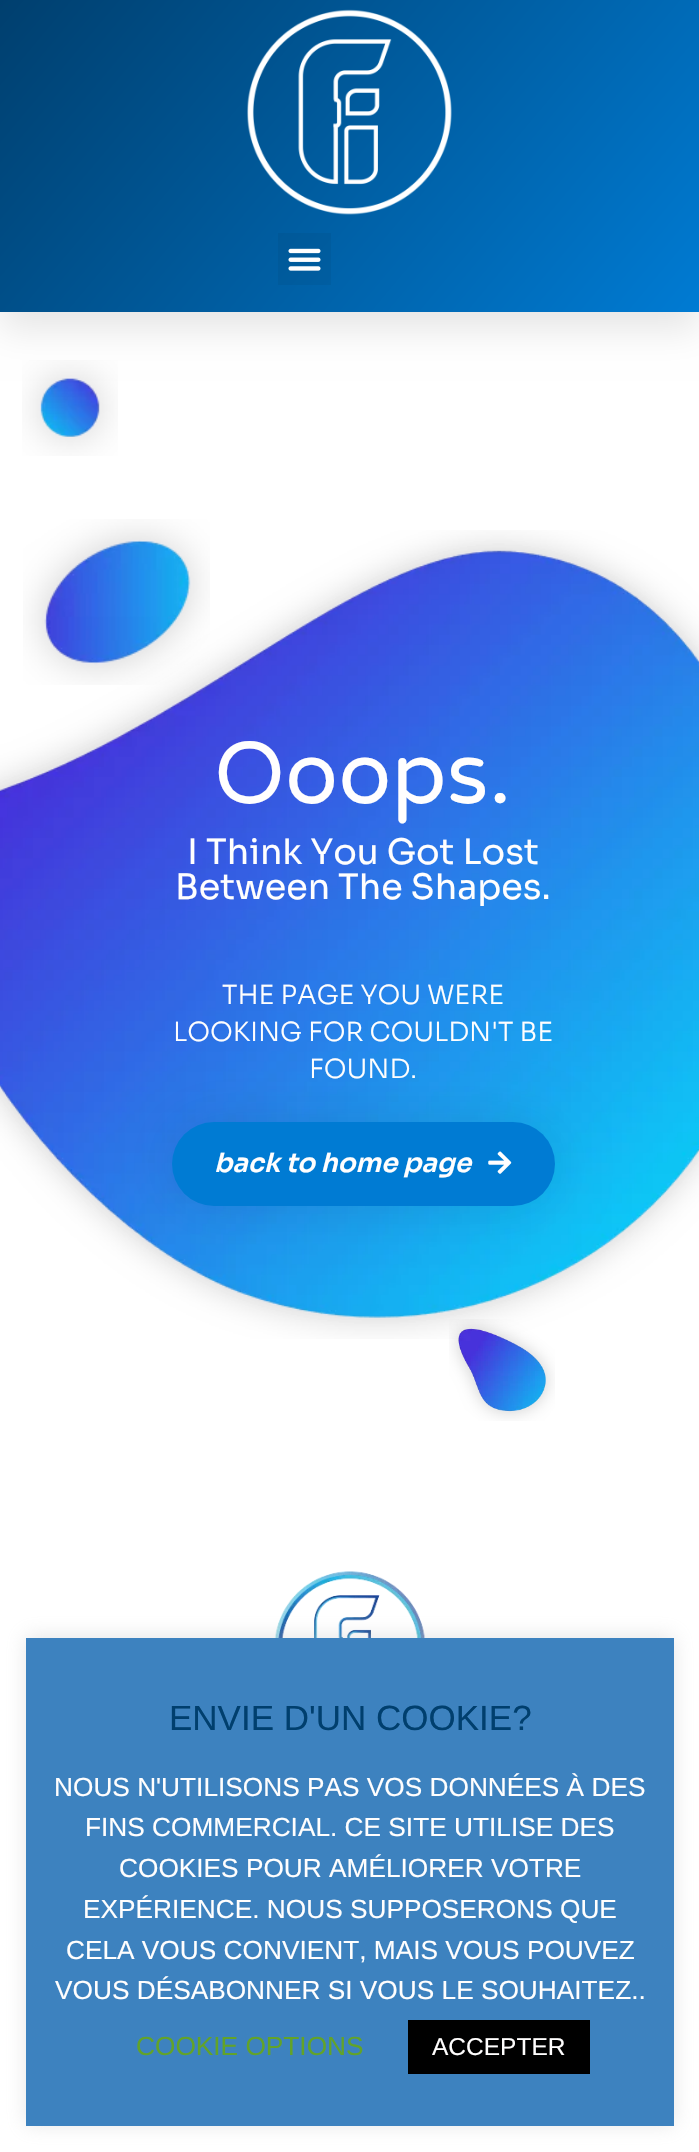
void draw(SkCanvas* canvas) {
	SkPaint paint;
	paint.setAntiAlias(true);
	canvas->clear(0xffffffff);
	paint.setColor(0x1a000000);
	paint.setMaskFilter(SkMaskFilter::MakeBlur(kNormal_SkBlurStyle, 17.5));
	canvas->drawRect(SkRect::MakeXYWH(0, 18, 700, 311), paint);
	paint.setMaskFilter(nullptr);
	{
		const SkColor colors[] = {0xff003f6e, 0xff007bd3};
		const float stops[] = {0, 1};
		const SkPoint ends[] = {{68, -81}, {632, 392}};
		paint.setShader(SkGradientShader::MakeLinear(ends, colors, stops, 2, SkTileMode::kClamp));
		paint.setAlpha(255);
	}
	canvas->drawRect(SkRect::MakeXYWH(0, 0, 699, 312), paint);
	{
		const SkColor colors[] = {0xff003c69, 0xff0075c8};
		const float stops[] = {0, 1};
		const SkPoint ends[] = {{68, -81}, {632, 392}};
		paint.setShader(SkGradientShader::MakeLinear(ends, colors, stops, 2, SkTileMode::kClamp));
		paint.setAlpha(255);
	}
	canvas->drawRect(SkRect::MakeXYWH(278, 233, 53, 52), paint);
	canvas->drawImageRect(SkImages::DeferredFromEncodedData(SkData::MakeFromFileName("img1.png")), SkRect::MakeXYWH(247, 9, 205, 206), SkSamplingOptions());
	canvas->drawImageRect(SkImages::DeferredFromEncodedData(SkData::MakeFromFileName("img2.png")), SkRect::MakeXYWH(288, 248, 33, 23), SkSamplingOptions());
	canvas->drawImageRect(SkImages::DeferredFromEncodedData(SkData::MakeFromFileName("img3.png")), SkRect::MakeXYWH(22, 360, 96, 96), SkSamplingOptions());
	canvas->drawImageRect(SkImages::DeferredFromEncodedData(SkData::MakeFromFileName("img5.png")), SkRect::MakeXYWH(0, 530, 699, 809), SkSamplingOptions());
	canvas->drawImageRect(SkImages::DeferredFromEncodedData(SkData::MakeFromFileName("img4.png")), SkRect::MakeXYWH(23, 519, 187, 166), SkSamplingOptions());
	SkFont f1(fontMgr->matchFamilyStyle("Varela Round", SkFontStyle::Normal()), 87.5);
	f1.setSubpixel(true);
	paint.setShader(nullptr);
	paint.setColor(0xfffffefe);
	canvas->drawString("Ooops.", 214, 803, f1, paint);
	SkFont f2(fontMgr->matchFamilyStyle("Sora", SkFontStyle::Normal()), 35);
	f2.setSubpixel(true);
	canvas->drawString("I Think You Got Lost", 187, 864, f2, paint);
	canvas->drawString("Between The Shapes.", 175, 899, f2, paint);
	SkFont f3(fontMgr->matchFamilyStyle("Sora", SkFontStyle(300, SkFontStyle::kNormal_Width, SkFontStyle::kUpright_Slant)), 26.25);
	f3.setSubpixel(true);
	canvas->drawString("THE PAGE YOU WERE", 222, 1004, f3, paint);
	canvas->drawString("LOOKING FOR COULDN'T BE", 173, 1041, f3, paint);
	canvas->drawString("FOUND.", 309, 1078, f3, paint);
	paint.setColor(0x1a000000);
	paint.setMaskFilter(SkMaskFilter::MakeBlur(kNormal_SkBlurStyle, 26));
	canvas->drawRoundRect(SkRect::MakeXYWH(172, 1122, 383, 84), 42, 42, paint);
	paint.setMaskFilter(nullptr);
	paint.setColor(0xff007bd3);
	canvas->drawRoundRect(SkRect::MakeXYWH(172, 1122, 383, 84), 42, 42, paint);
	SkFont f4(fontMgr->matchFamilyStyle("Sora", SkFontStyle(600, SkFontStyle::kNormal_Width, SkFontStyle::kItalic_Slant)), 26.25);
	f4.setSubpixel(true);
	paint.setColor(0xfffffefe);
	canvas->drawString("back to home page", 214, 1172, f4, paint);
	canvas->drawImageRect(SkImages::DeferredFromEncodedData(SkData::MakeFromFileName("img6.png")), SkRect::MakeXYWH(488, 1151, 24, 23), SkSamplingOptions());
	canvas->drawImageRect(SkImages::DeferredFromEncodedData(SkData::MakeFromFileName("img7.png")), SkRect::MakeXYWH(449, 1319, 106, 102), SkSamplingOptions());
	canvas->drawImageRect(SkImages::DeferredFromEncodedData(SkData::MakeFromFileName("img8.png")), SkRect::MakeXYWH(274, 1571, 152, 67), SkSamplingOptions());
	paint.setColor(0x4dacabab);
	paint.setMaskFilter(SkMaskFilter::MakeBlur(kNormal_SkBlurStyle, 9));
	canvas->drawRect(SkRect::MakeXYWH(26, 1636, 648, 489), paint);
	paint.setMaskFilter(nullptr);
	paint.setColor(0xff3d82bf);
	canvas->drawRect(SkRect::MakeXYWH(26, 1638, 648, 488), paint);
	SkFont f5(fontMgr->matchFamilyStyle("Liberation Sans", SkFontStyle::Normal()), 35);
	f5.setSubpixel(true);
	paint.setColor(0xff003f6e);
	canvas->drawString("ENVIE D'UN COOKIE?", 169, 1730, f5, paint);
	SkFont f6(fontMgr->matchFamilyStyle("Liberation Sans", SkFontStyle::Normal()), 26.25);
	f6.setSubpixel(true);
	paint.setColor(0xfffffefe);
	canvas->drawString("NOUS N'UTILISONS PAS VOS DONNÉES À DES", 54, 1796, f6, paint);
	canvas->drawString("FINS COMMERCIAL. CE SITE UTILISE DES", 85, 1836, f6, paint);
	canvas->drawString("COOKIES POUR AMÉLIORER VOTRE", 119, 1877, f6, paint);
	canvas->drawString("EXPÉRIENCE. NOUS SUPPOSERONS QUE", 83, 1918, f6, paint);
	canvas->drawString("CELA VOUS CONVIENT, MAIS VOUS POUVEZ", 66, 1959, f6, paint);
	canvas->drawString("VOUS DÉSABONNER SI VOUS LE SOUHAITEZ..", 55, 1999, f6, paint);
	paint.setColor(0xff62a329);
	canvas->drawString("COOKIE OPTIONS", 136, 2055, f6, paint);
	paint.setColor(0xff000000);
	canvas->drawRect(SkRect::MakeXYWH(408, 2020, 182, 54), paint);
	SkFont f7(fontMgr->matchFamilyStyle("Liberation Sans", SkFontStyle::Normal()), 24.5);
	f7.setSubpixel(true);
	paint.setColor(0xfffffefe);
	canvas->drawString("ACCEPTER", 432, 2055, f7, paint);
}
